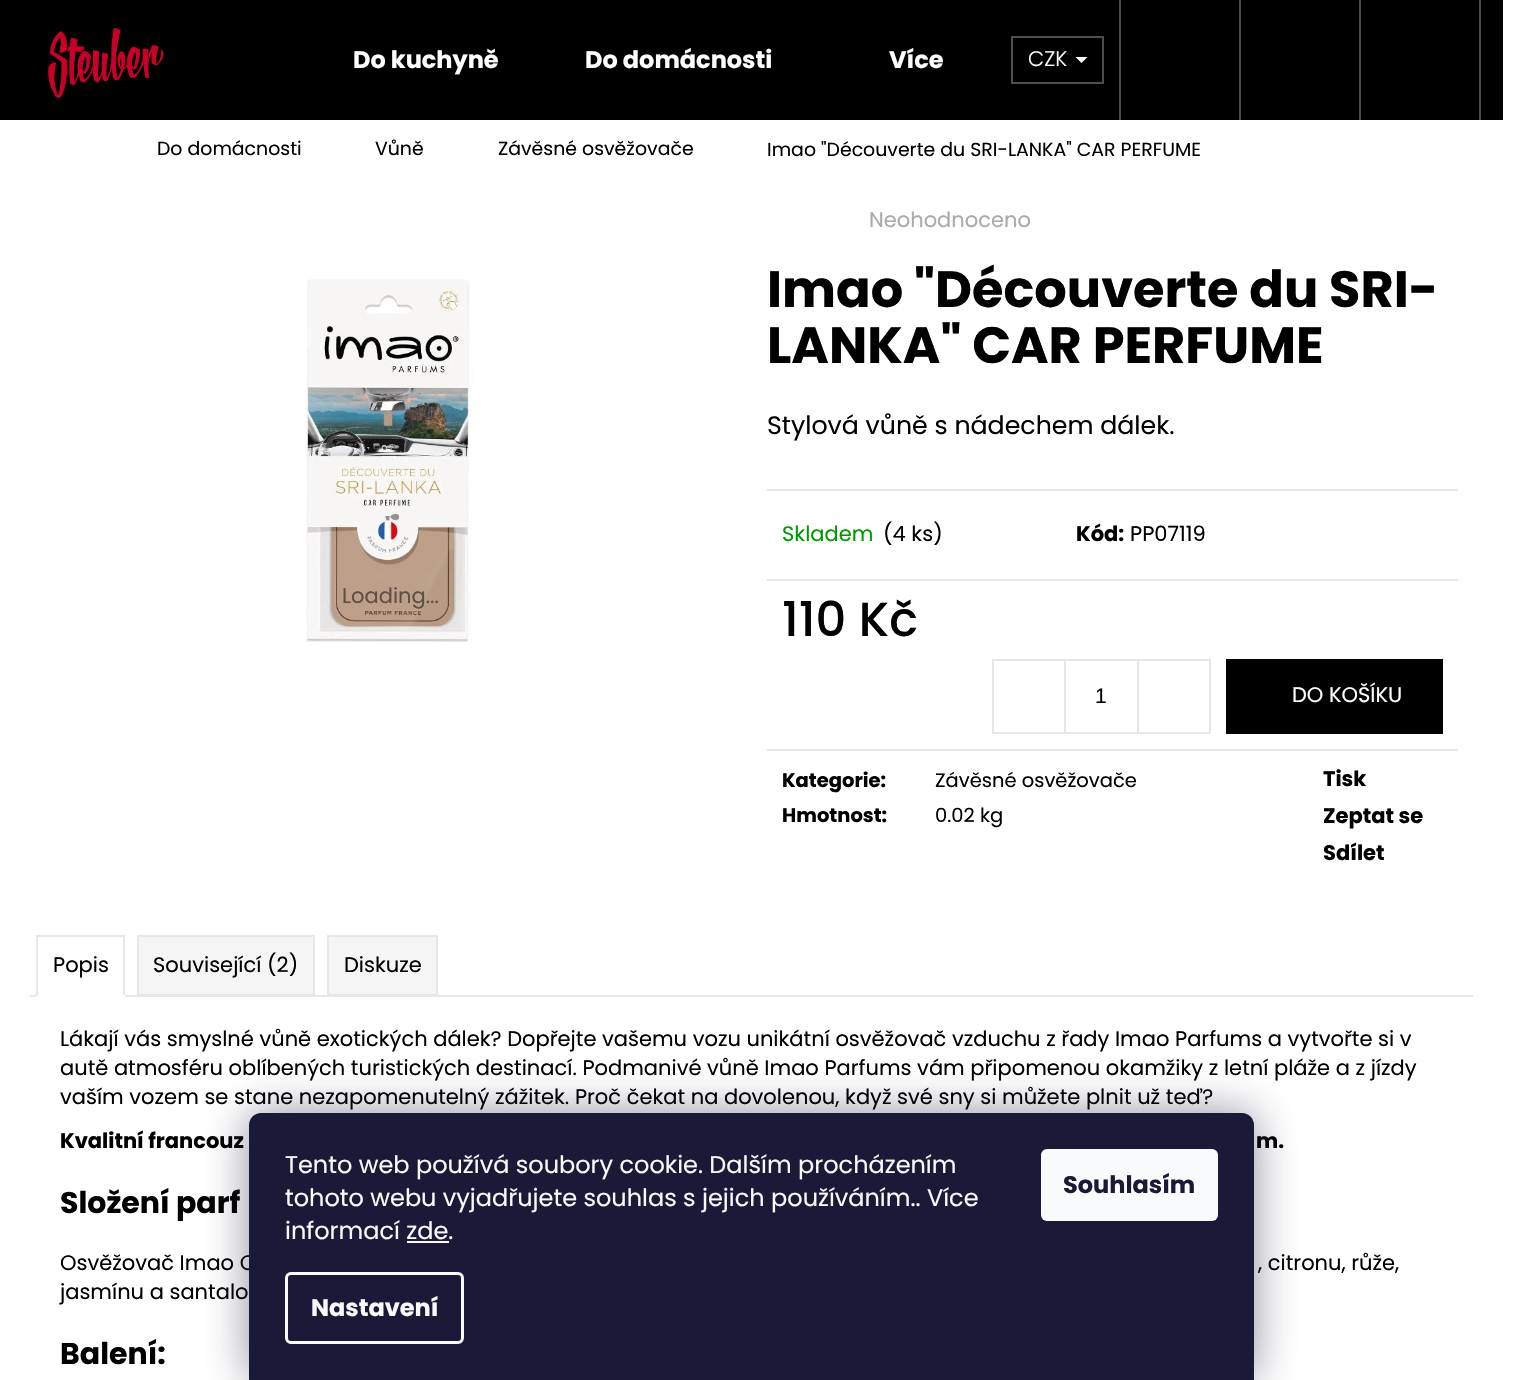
void draw(SkCanvas* canvas) {
	SkPaint paint;
	paint.setAntiAlias(true);
	auto svgPath = [&](const char* data, bool evenOdd = false) {
		SkPath result = *SkParsePath::FromSVGString(data);
		if (evenOdd) result.setFillType(SkPathFillType::kEvenOdd);
		return result;
	};
	canvas->clear(0xffffffff);
	paint.setColor(0xff000000);
	canvas->drawRect(SkRect::MakeXYWH(0, 0, 1503, 120), paint);
	canvas->drawImageRect(SkImages::DeferredFromEncodedData(SkData::MakeFromFileName("img1.png")), SkRect::MakeXYWH(48, 28, 116, 70), SkSamplingOptions());
	SkFont f1(fontMgr->matchFamilyStyle("Poppins", SkFontStyle::Bold()), 24);
	f1.setSubpixel(true);
	paint.setColor(0xffffffff);
	canvas->drawString("Do kuchyně", 353, 68, f1, paint);
	canvas->drawString("Do domácnosti", 585, 68, f1, paint);
	canvas->drawString("Více", 889, 68, f1, paint);
	paint.setColor(0xff4d4d4d);
	canvas->drawRect(SkRect::MakeXYWH(1479, 0, 2, 120), paint);
	paint.setStroke(true);
	paint.setStrokeWidth(2);
	canvas->drawRect(SkRect::MakeXYWH(1012, 37, 91, 46), paint);
	SkFont f2(fontMgr->matchFamilyStyle("Poppins", SkFontStyle(300, SkFontStyle::kNormal_Width, SkFontStyle::kUpright_Slant)), 21);
	f2.setSubpixel(true);
	paint.setStroke(false);
	paint.setColor(0xffffffff);
	canvas->drawString("CZK", 1028, 66, f2, paint);
	canvas->drawPath(svgPath("M1075.5 57H1087.5L1081.5 63Z"), paint);
	paint.setColor(0xff4d4d4d);
	canvas->drawRect(SkRect::MakeXYWH(1119, 0, 2, 120), paint);
	canvas->drawRect(SkRect::MakeXYWH(1239, 0, 2, 120), paint);
	canvas->drawRect(SkRect::MakeXYWH(1359, 0, 2, 120), paint);
	SkFont f3(fontMgr->matchFamilyStyle("Poppins", SkFontStyle::Normal()), 18.9);
	f3.setSubpixel(true);
	paint.setColor(0xff000000);
	canvas->drawString("Do domácnosti", 157, 155, f3, paint);
	canvas->drawString("Vůně", 375, 155, f3, paint);
	canvas->drawString("Závěsné osvěžovače", 498, 155, f3, paint);
	canvas->drawString("Imao \"Découverte du SRI-LANKA\" CAR PERFUME", 767, 156, f3, paint);
	canvas->drawImageRect(SkImages::DeferredFromEncodedData(SkData::MakeFromFileName("img2.png")), SkRect::MakeXYWH(305, 279, 168, 363), SkSamplingOptions());
	SkFont f4(fontMgr->matchFamilyStyle("Poppins", SkFontStyle::Normal()), 21);
	f4.setSubpixel(true);
	paint.setColor(0xff5f5045);
	canvas->drawString("Loading...", 342, 603, f4, paint);
	paint.setColor(0xffaaaaaa);
	canvas->drawString("Neohodnoceno", 869, 227, f4, paint);
	SkFont f5(fontMgr->matchFamilyStyle("Poppins", SkFontStyle::Bold()), 51);
	f5.setSubpixel(true);
	paint.setColor(0xff000000);
	canvas->drawString("Imao \"Découverte du SRI-", 767, 307, f5, paint);
	canvas->drawString("LANKA\" CAR PERFUME", 767, 363, f5, paint);
	SkFont f6(fontMgr->matchFamilyStyle("Poppins", SkFontStyle::Normal()), 25.25);
	f6.setSubpixel(true);
	canvas->drawString("Stylová vůně s nádechem dálek.", 767, 434, f6, paint);
	paint.setColor(0xffe7e7e7);
	canvas->drawRect(SkRect::MakeXYWH(767, 489, 691, 2), paint);
	canvas->drawRect(SkRect::MakeXYWH(767, 579, 691, 2), paint);
	paint.setColor(0xff009901);
	canvas->drawString("Skladem", 782, 541, f4, paint);
	paint.setColor(0xff000000);
	canvas->drawString("(4 ks)", 883, 541, f4, paint);
	SkFont f7(fontMgr->matchFamilyStyle("Poppins", SkFontStyle::Bold()), 21);
	f7.setSubpixel(true);
	canvas->drawString("Kód:", 1076, 541, f7, paint);
	canvas->drawString("PP07119", 1130, 541, f4, paint);
	paint.setColor(0xffe7e7e7);
	canvas->drawRect(SkRect::MakeXYWH(767, 749, 691, 2), paint);
	SkFont f8(fontMgr->matchFamilyStyle("Poppins", SkFontStyle(500, SkFontStyle::kNormal_Width, SkFontStyle::kUpright_Slant)), 48);
	f8.setSubpixel(true);
	paint.setColor(0xff000000);
	canvas->drawString("110 Kč", 782, 636, f8, paint);
	paint.setStroke(true);
	paint.setColor(0xffe6e6e6);
	canvas->drawRect(SkRect::MakeXYWH(993, 660, 217, 73), paint);
	paint.setStroke(false);
	canvas->drawRect(SkRect::MakeXYWH(1064, 660, 2, 72), paint);
	SkFont f9(fontMgr->matchFamilyStyle("Liberation Sans", SkFontStyle::Normal()), 21);
	f9.setSubpixel(true);
	paint.setColor(0xff000000);
	canvas->drawString("1", 1095, 703, f9, paint);
	paint.setColor(0xffe6e6e6);
	canvas->drawRect(SkRect::MakeXYWH(1137, 660, 2, 72), paint);
	paint.setColor(0xff000000);
	canvas->drawRect(SkRect::MakeXYWH(1226, 659, 217, 75), paint);
	paint.setColor(0xffffffff);
	canvas->drawString("DO KOŠÍKU", 1292, 702, f4, paint);
	SkFont f10(fontMgr->matchFamilyStyle("Poppins", SkFontStyle::Bold()), 19.5);
	f10.setSubpixel(true);
	paint.setColor(0xff000000);
	canvas->drawString("Kategorie:", 782, 787, f10, paint);
	SkFont f11(fontMgr->matchFamilyStyle("Poppins", SkFontStyle::Normal()), 19.5);
	f11.setSubpixel(true);
	canvas->drawString("Závěsné osvěžovače", 935, 787, f11, paint);
	canvas->drawString("Hmotnost:", 782, 822, f10, paint);
	canvas->drawString("0.02 kg", 935, 822, f11, paint);
	canvas->drawString("Tisk", 1323, 786, f7, paint);
	canvas->drawString("Zeptat se", 1323, 823, f7, paint);
	canvas->drawString("Sdílet", 1323, 860, f7, paint);
	paint.setColor(0xffe7e7e7);
	canvas->drawRect(SkRect::MakeXYWH(30, 995, 1443, 2), paint);
	canvas->drawRect(SkRect::MakeXYWH(36, 935, 89, 2), paint);
	canvas->drawRect(SkRect::MakeXYWH(123, 935, 2, 61), paint);
	paint.setColor(0xffffffff);
	canvas->drawRect(SkRect::MakeXYWH(36, 995, 89, 2), paint);
	paint.setColor(0xffe7e7e7);
	canvas->drawRect(SkRect::MakeXYWH(36, 935, 2, 61), paint);
	paint.setColor(0xff000000);
	canvas->drawString("Popis", 53, 972, f4, paint);
	paint.setColor(0xfff5f5f5);
	canvas->drawRect(SkRect::MakeXYWH(138, 936, 176, 59), paint);
	paint.setStroke(true);
	paint.setColor(0xffe7e7e7);
	canvas->drawRect(SkRect::MakeXYWH(138, 936, 176, 59), paint);
	paint.setStroke(false);
	paint.setColor(0xff000000);
	canvas->drawString("Související (2)", 153, 972, f4, paint);
	paint.setColor(0xfff5f5f5);
	canvas->drawRect(SkRect::MakeXYWH(328, 936, 109, 59), paint);
	paint.setStroke(true);
	paint.setColor(0xffe7e7e7);
	canvas->drawRect(SkRect::MakeXYWH(328, 936, 109, 59), paint);
	paint.setStroke(false);
	paint.setColor(0xff000000);
	canvas->drawString("Diskuze", 344, 972, f4, paint);
	canvas->drawString("Lákají vás smyslné vůně exotických dálek? Dopřejte vašemu vozu unikátní osvěžovač vzduchu z řady Imao Parfums a vytvořte si v", 60, 1046, f4, paint);
	canvas->drawString("autě atmosféru oblíbených turistických destinací. Podmanivé vůně Imao Parfums vám připomenou okamžiky z letní pláže a z jízdy", 60, 1075, f4, paint);
	canvas->drawString("vaším vozem se stane nezapomenutelný zážitek. Proč čekat na dovolenou, když své sny si můžete plnit už teď?", 60, 1104, f4, paint);
	canvas->drawString("Kvalitní francouz", 60, 1148, f7, paint);
	canvas->drawString("m.", 1256, 1148, f7, paint);
	SkFont f12(fontMgr->matchFamilyStyle("Poppins", SkFontStyle::Bold()), 30);
	f12.setSubpixel(true);
	canvas->drawString("Složení parf", 60, 1213, f12, paint);
	canvas->drawString("Osvěžovač Imao C", 60, 1270, f4, paint);
	canvas->drawString(", citronu, růže,", 1258, 1270, f4, paint);
	canvas->drawString("jasmínu a santalo", 60, 1299, f4, paint);
	canvas->drawString("Balení:", 60, 1364, f12, paint);
	paint.setColor(0x801b1939);
	paint.setMaskFilter(SkMaskFilter::MakeBlur(kNormal_SkBlurStyle, 22.5));
	canvas->drawRoundRect(SkRect::MakeXYWH(249, 1113, 1005, 267), 12, 12, paint);
	paint.setMaskFilter(nullptr);
	paint.setColor(0xff1a1937);
	canvas->drawPath(svgPath("M261 1113H1242C1248.5 1113 1254 1118.5 1254 1125V1380H249V1125C249 1118.5 254.5 1113 261 1113Z"), paint);
	SkFont f13(fontMgr->matchFamilyStyle("Poppins", SkFontStyle::Normal()), 24);
	f13.setSubpixel(true);
	paint.setColor(0xfff8fafb);
	canvas->drawString("Tento web používá soubory cookie. Dalším procházením", 285, 1173, f13, paint);
	canvas->drawString("tohoto webu vyjadřujete souhlas s jejich používáním.. Více", 285, 1206, f13, paint);
	canvas->drawString("informací zde.", 285, 1239, f13, paint);
	canvas->drawRect(SkRect::MakeXYWH(407, 1241, 42, 2), paint);
	paint.setStroke(true);
	paint.setStrokeWidth(3);
	canvas->drawRoundRect(SkRect::MakeXYWH(286.5, 1273.5, 176, 69), 4.5, 4.5, paint);
	paint.setStroke(false);
	canvas->drawString("Nastavení", 311, 1316, f1, paint);
	canvas->drawRoundRect(SkRect::MakeXYWH(1041, 1149, 177, 72), 6, 6, paint);
	paint.setColor(0xff1a1937);
	canvas->drawString("Souhlasím", 1063, 1193, f1, paint);
}
